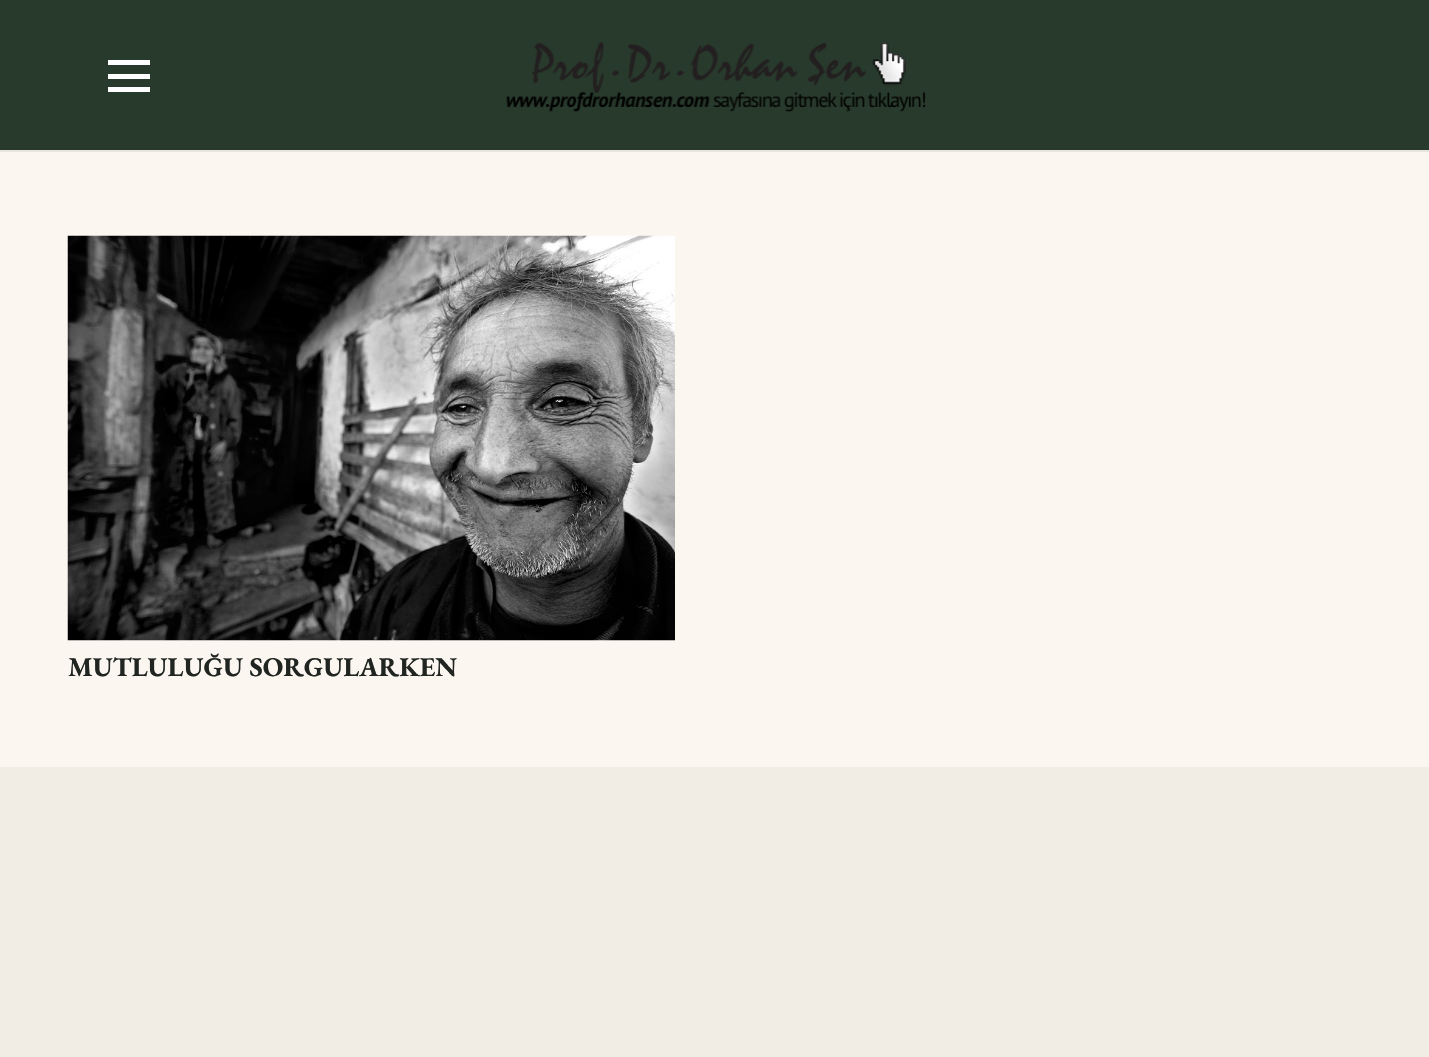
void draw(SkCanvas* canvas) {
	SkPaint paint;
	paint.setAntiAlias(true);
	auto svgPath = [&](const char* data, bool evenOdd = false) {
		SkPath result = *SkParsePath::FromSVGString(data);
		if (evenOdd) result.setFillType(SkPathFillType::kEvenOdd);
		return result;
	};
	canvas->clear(0xfff2ede4);
	paint.setColor(0xfffbf7f0);
	canvas->drawRect(SkRect::MakeXYWH(0, 152, 1429, 615), paint);
	paint.setColor(0xffe7e3dd);
	canvas->drawPath(svgPath("M0 150V152H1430V2V150Z"), paint);
	paint.setColor(0xff283a2c);
	canvas->drawRect(SkRect::MakeXYWH(0, 0, 1429, 150), paint);
	paint.setColor(0xffffffff);
	canvas->drawRect(SkRect::MakeXYWH(108, 74, 42, 5), paint);
	canvas->drawRect(SkRect::MakeXYWH(108, 60, 42, 5), paint);
	canvas->drawRect(SkRect::MakeXYWH(108, 87, 42, 5), paint);
	canvas->drawImageRect(SkImages::DeferredFromEncodedData(SkData::MakeFromFileName("img1.png")), SkRect::MakeXYWH(506, 42, 420, 70), SkSamplingOptions());
	canvas->drawImageRect(SkImages::DeferredFromEncodedData(SkData::MakeFromFileName("img2.png")), SkRect::MakeXYWH(67, 235, 608, 406), SkSamplingOptions());
	SkFont f1(fontMgr->matchFamilyStyle("EB Garamond", SkFontStyle::Bold()), 27);
	f1.setSubpixel(true);
	paint.setColor(0xff202521);
	canvas->drawString("MUTLULUĞU SORGULARKEN", 68, 676, f1, paint);
}
